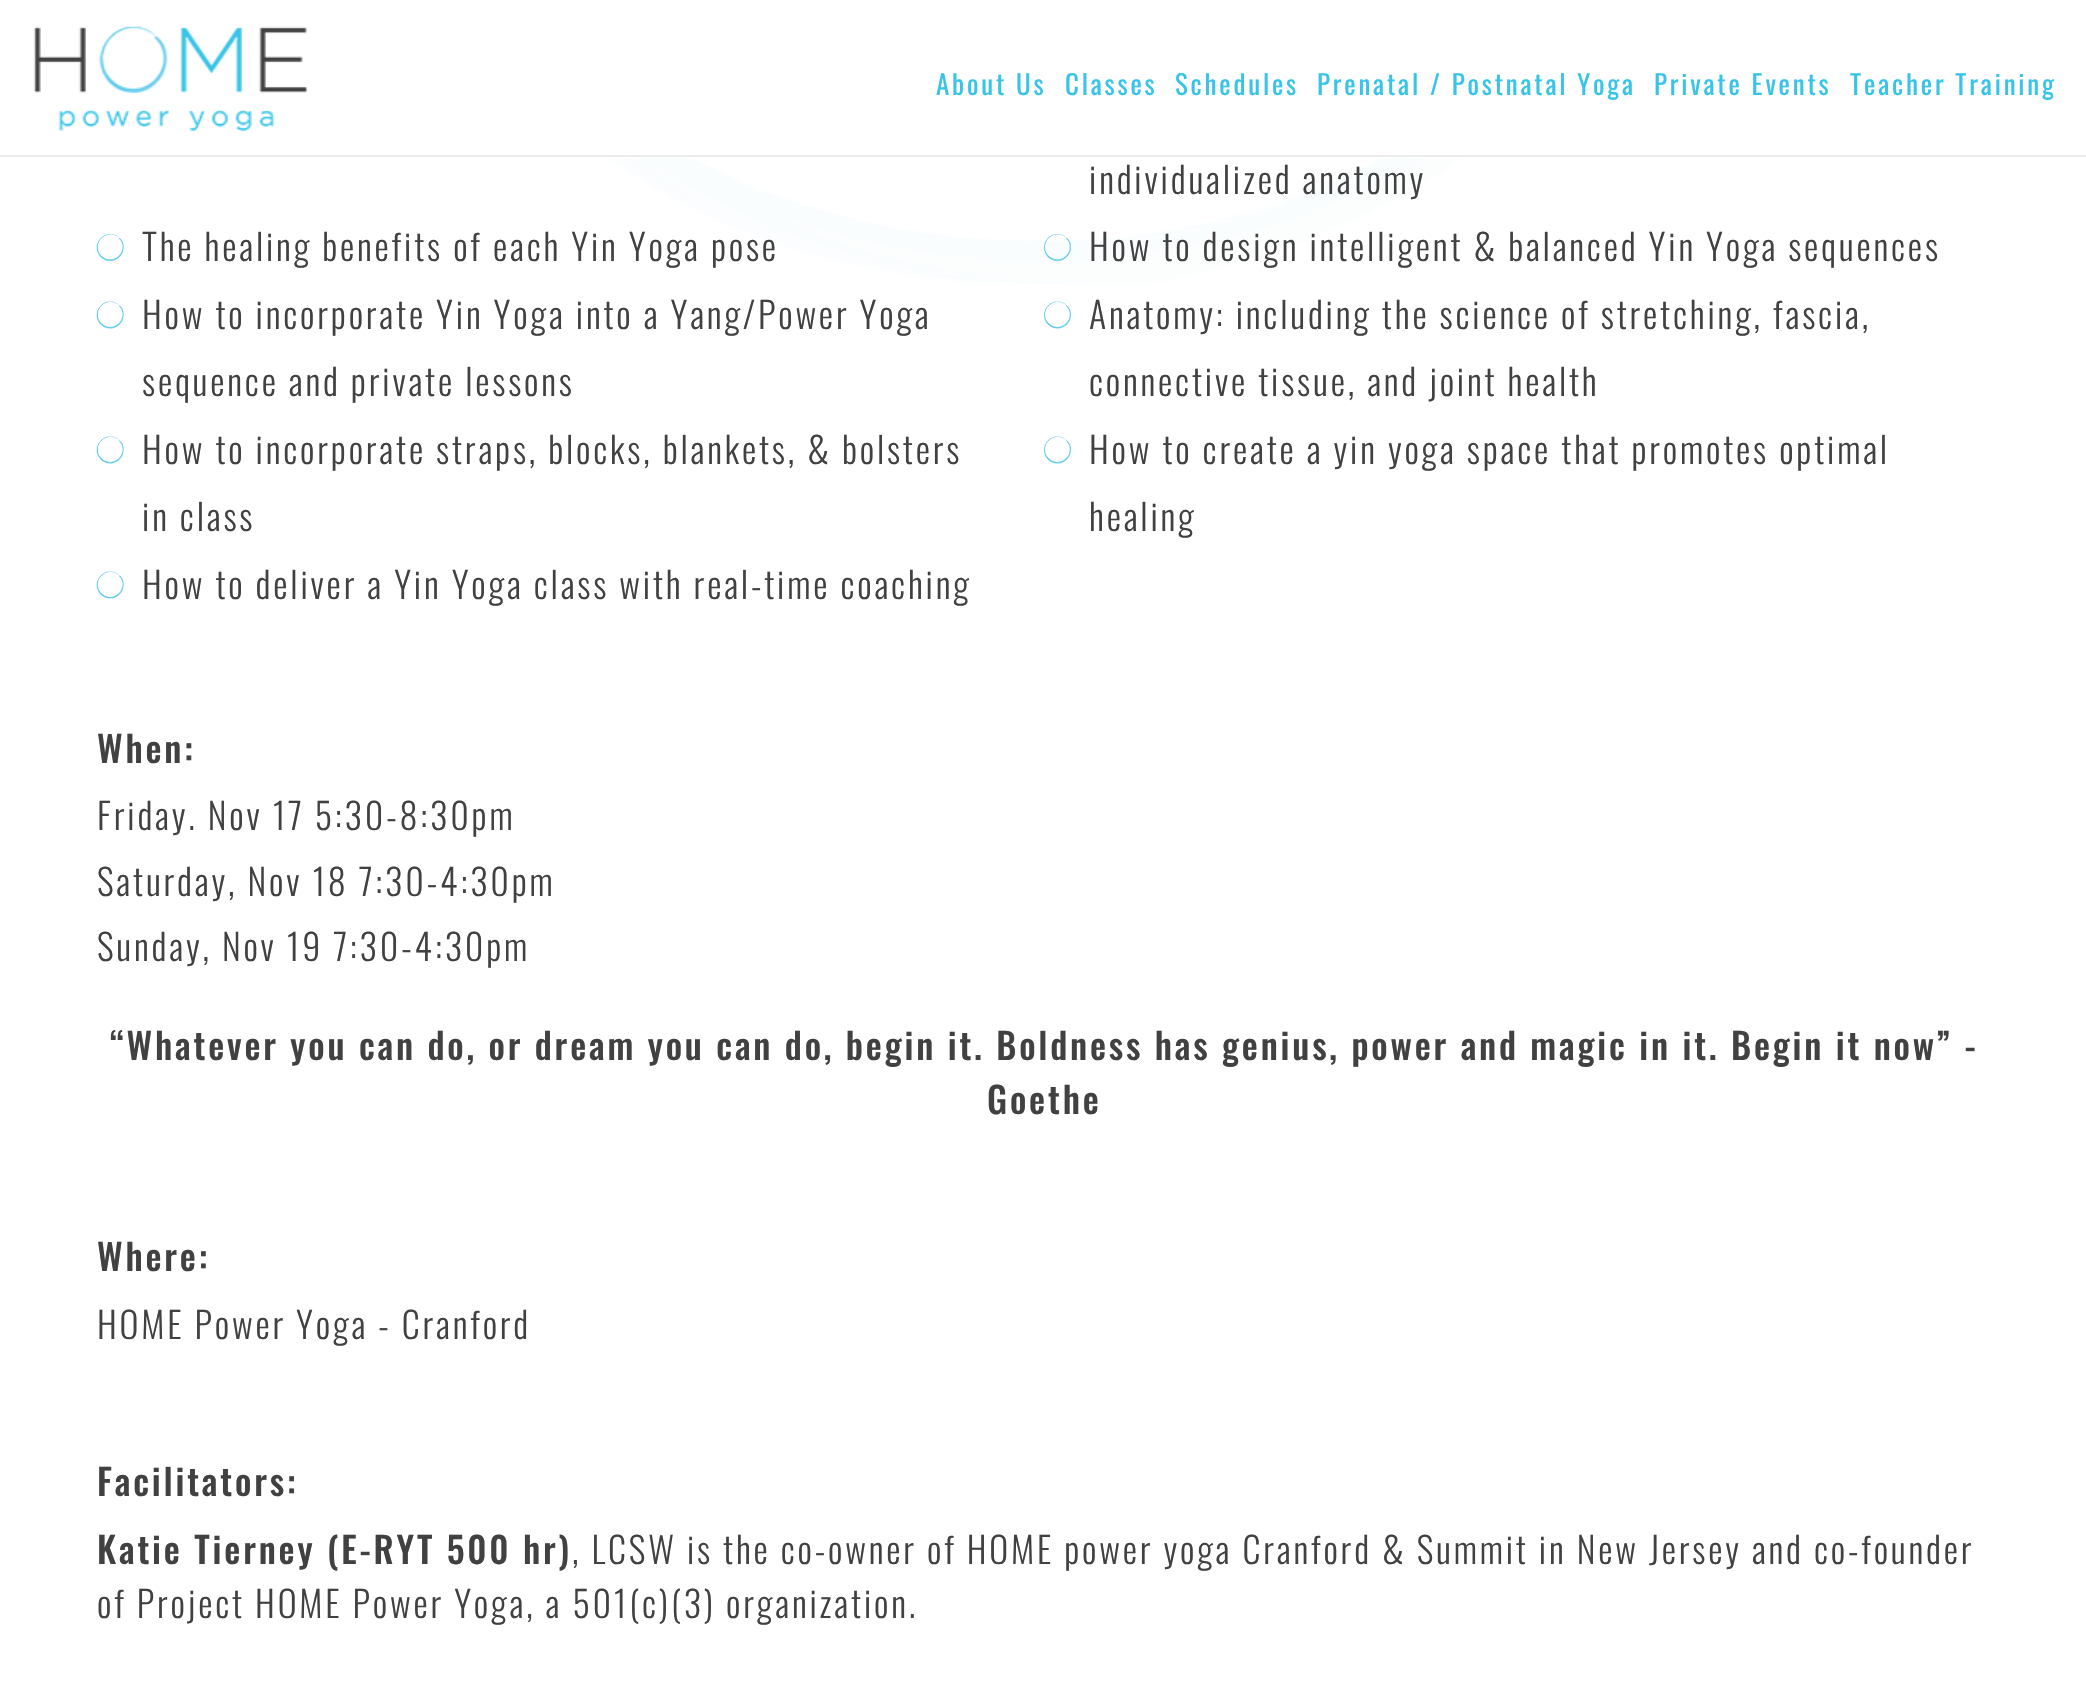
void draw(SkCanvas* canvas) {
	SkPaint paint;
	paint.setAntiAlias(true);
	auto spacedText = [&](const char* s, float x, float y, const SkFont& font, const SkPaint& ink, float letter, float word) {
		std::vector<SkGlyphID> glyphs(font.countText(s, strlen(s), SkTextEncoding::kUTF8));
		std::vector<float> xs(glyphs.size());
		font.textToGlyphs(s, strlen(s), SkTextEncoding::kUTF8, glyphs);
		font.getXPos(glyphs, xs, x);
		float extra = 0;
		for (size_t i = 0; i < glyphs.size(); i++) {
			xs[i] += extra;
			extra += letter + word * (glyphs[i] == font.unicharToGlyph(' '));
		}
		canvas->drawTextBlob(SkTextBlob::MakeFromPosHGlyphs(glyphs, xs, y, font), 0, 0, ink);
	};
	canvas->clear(0xffffffff);
	paint.setColor(0xffececec);
	canvas->drawRect(SkRect::MakeXYWH(0, 155, 2086, 2), paint);
	canvas->drawImageRect(SkImages::DeferredFromEncodedData(SkData::MakeFromFileName("img1.png")), SkRect::MakeXYWH(33, 26, 274, 105), SkSamplingOptions());
	SkFont f1(fontMgr->matchFamilyStyle("Oswald", SkFontStyle::Normal()), 27);
	f1.setSubpixel(true);
	paint.setColor(0xff37c4e8);
	spacedText("About Us", 936, 95, f1, paint, 2.81, 0);
	spacedText("Classes", 1065, 95, f1, paint, 2.81, 0);
	spacedText("Schedules", 1175, 95, f1, paint, 2.81, 0);
	spacedText("Prenatal / Postnatal Yoga", 1317, 95, f1, paint, 2.81, 0);
	spacedText("Private Events", 1654, 95, f1, paint, 2.81, 0);
	spacedText("Teacher Training", 1850, 95, f1, paint, 2.81, 0);
	canvas->drawImageRect(SkImages::DeferredFromEncodedData(SkData::MakeFromFileName("img2.png")), SkRect::MakeXYWH(605, 158, 860, 126), SkSamplingOptions());
	SkFont f2(fontMgr->matchFamilyStyle("Oswald", SkFontStyle(300, SkFontStyle::kNormal_Width, SkFontStyle::kUpright_Slant)), 36);
	f2.setSubpixel(true);
	paint.setColor(0xff414142);
	spacedText("individualized anatomy", 1089, 194, f2, paint, 2.81, 0);
	canvas->drawImageRect(SkImages::DeferredFromEncodedData(SkData::MakeFromFileName("img3.png")), SkRect::MakeXYWH(96, 234, 28, 27), SkSamplingOptions());
	spacedText("The healing benefits of each Yin Yoga pose", 142, 261, f2, paint, 2.81, 0);
	canvas->drawImageRect(SkImages::DeferredFromEncodedData(SkData::MakeFromFileName("img4.png")), SkRect::MakeXYWH(1044, 234, 27, 27), SkSamplingOptions());
	spacedText("How to design intelligent & balanced Yin Yoga sequences", 1089, 261, f2, paint, 2.81, 0);
	canvas->drawImageRect(SkImages::DeferredFromEncodedData(SkData::MakeFromFileName("img5.png")), SkRect::MakeXYWH(96, 301, 28, 28), SkSamplingOptions());
	spacedText("How to incorporate Yin Yoga into a Yang/Power Yoga", 142, 329, f2, paint, 2.81, 0);
	spacedText("sequence and private lessons", 142, 396, f2, paint, 2.81, 0);
	canvas->drawImageRect(SkImages::DeferredFromEncodedData(SkData::MakeFromFileName("img6.png")), SkRect::MakeXYWH(1044, 301, 27, 28), SkSamplingOptions());
	spacedText("Anatomy: including the science of stretching, fascia,", 1089, 329, f2, paint, 2.81, 0);
	spacedText("connective tissue, and joint health", 1089, 396, f2, paint, 2.81, 0);
	canvas->drawImageRect(SkImages::DeferredFromEncodedData(SkData::MakeFromFileName("img5.png")), SkRect::MakeXYWH(96, 436, 28, 28), SkSamplingOptions());
	spacedText("How to incorporate straps, blocks, blankets, & bolsters", 142, 464, f2, paint, 2.81, 0);
	spacedText("in class", 142, 531, f2, paint, 2.81, 0);
	canvas->drawImageRect(SkImages::DeferredFromEncodedData(SkData::MakeFromFileName("img6.png")), SkRect::MakeXYWH(1044, 436, 27, 28), SkSamplingOptions());
	spacedText("How to create a yin yoga space that promotes optimal", 1089, 464, f2, paint, 2.81, 0);
	spacedText("healing", 1089, 531, f2, paint, 2.81, 0);
	canvas->drawImageRect(SkImages::DeferredFromEncodedData(SkData::MakeFromFileName("img5.png")), SkRect::MakeXYWH(96, 571, 28, 28), SkSamplingOptions());
	spacedText("How to deliver a Yin Yoga class with real-time coaching", 142, 599, f2, paint, 2.81, 0);
	SkFont f3(fontMgr->matchFamilyStyle("Oswald", SkFontStyle(500, SkFontStyle::kNormal_Width, SkFontStyle::kUpright_Slant)), 36);
	f3.setSubpixel(true);
	spacedText("When:", 97, 763, f3, paint, 2.81, 0);
	spacedText("Friday. Nov 17 5:30-8:30pm", 97, 830, f2, paint, 2.81, 0);
	spacedText("Saturday, Nov 18 7:30-4:30pm", 97, 896, f2, paint, 2.81, 0);
	spacedText("Sunday, Nov 19 7:30-4:30pm", 97, 961, f2, paint, 2.81, 0);
	spacedText("“Whatever you can do, or dream you can do, begin it. Boldness has genius, power and magic in it. Begin it now” -", 110, 1060, f3, paint, 2.81, 0);
	spacedText("Goethe", 987, 1114, f3, paint, 2.81, 0);
	spacedText("Where:", 97, 1271, f3, paint, 2.81, 0);
	spacedText("HOME Power Yoga - Cranford", 97, 1339, f2, paint, 2.81, 0);
	spacedText("Facilitators:", 97, 1496, f3, paint, 2.81, 0);
	spacedText("Katie Tierney (E-RYT 500 hr)", 97, 1564, f3, paint, 2.81, 0);
	spacedText(", LCSW is the co-owner of HOME power yoga Cranford & Summit in New Jersey and co-founder", 572, 1564, f2, paint, 2.81, 0);
	spacedText("of Project HOME Power Yoga, a 501(c)(3) organization.", 97, 1618, f2, paint, 2.81, 0);
}
